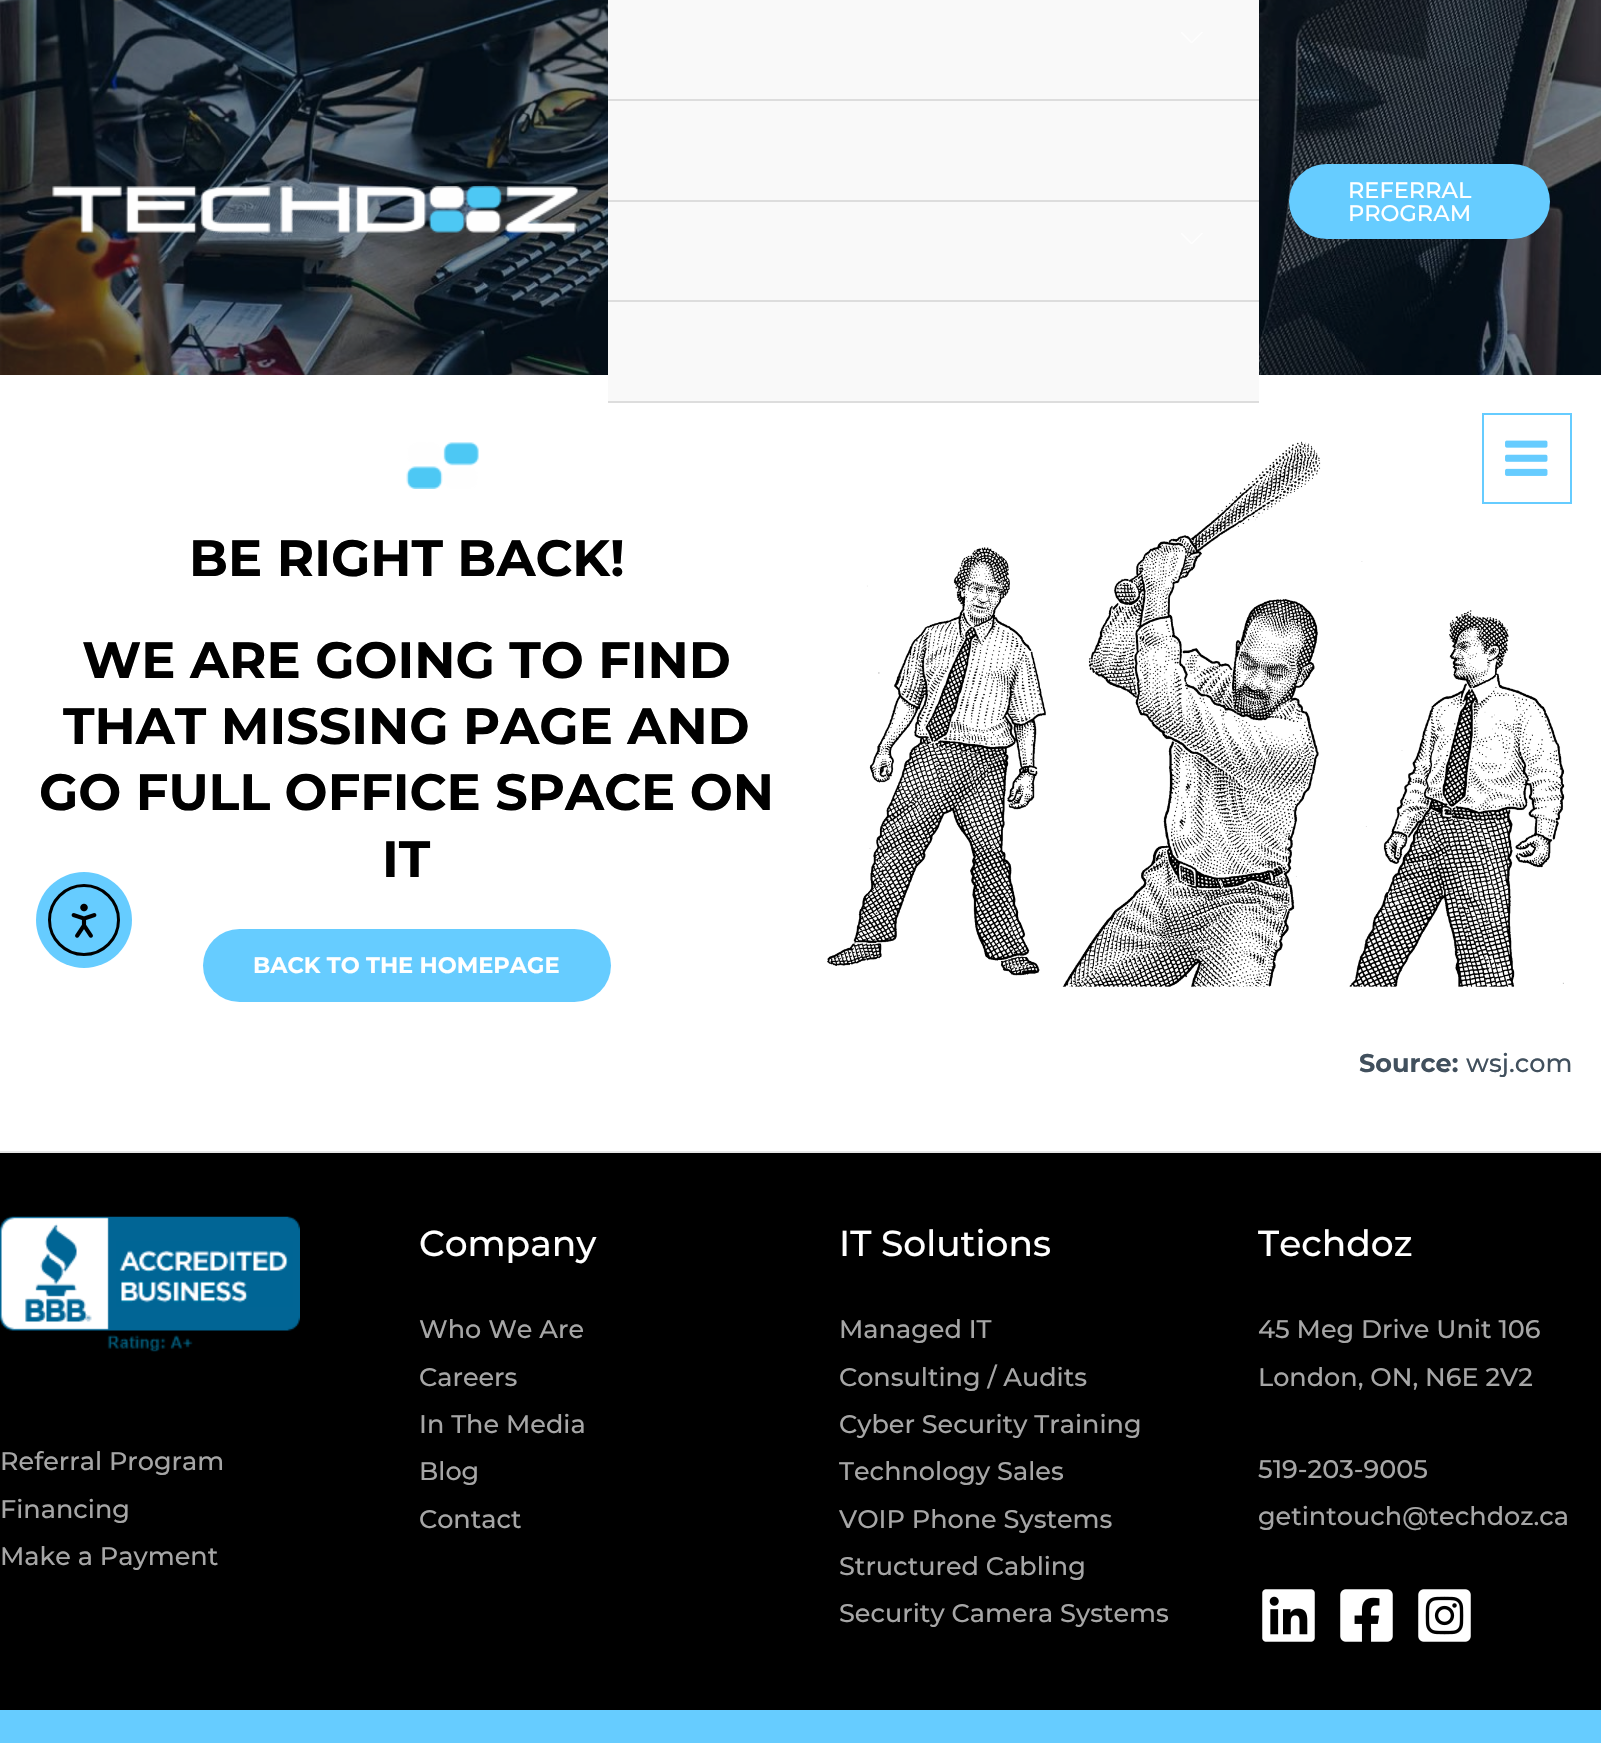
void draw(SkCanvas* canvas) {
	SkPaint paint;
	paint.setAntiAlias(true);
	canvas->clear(0xffffffff);
	canvas->drawImageRect(SkImages::DeferredFromEncodedData(SkData::MakeFromFileName("img5.png")), SkRect::MakeXYWH(0, 0, 1601, 375), SkSamplingOptions());
	canvas->drawImageRect(SkImages::DeferredFromEncodedData(SkData::MakeFromFileName("img1.png")), SkRect::MakeXYWH(52, 186, 526, 47), SkSamplingOptions());
	paint.setColor(0xfff9f9f9);
	canvas->drawRect(SkRect::MakeXYWH(608, 0, 651, 401), paint);
	canvas->drawImageRect(SkImages::DeferredFromEncodedData(SkData::MakeFromFileName("img2.png")), SkRect::MakeXYWH(1181, 32, 22, 11), SkSamplingOptions());
	paint.setColor(0xffdddddd);
	canvas->drawRect(SkRect::MakeXYWH(608, 99, 651, 2), paint);
	canvas->drawRect(SkRect::MakeXYWH(608, 200, 651, 2), paint);
	canvas->drawImageRect(SkImages::DeferredFromEncodedData(SkData::MakeFromFileName("img2.png")), SkRect::MakeXYWH(1181, 233, 22, 11), SkSamplingOptions());
	canvas->drawRect(SkRect::MakeXYWH(608, 300, 651, 2), paint);
	canvas->drawRect(SkRect::MakeXYWH(608, 401, 651, 2), paint);
	paint.setColor(0xff66ccff);
	canvas->drawRoundRect(SkRect::MakeXYWH(1289, 164, 261, 75), 37.5, 37.5, paint);
	SkFont f1(fontMgr->matchFamilyStyle("Montserrat", SkFontStyle(500, SkFontStyle::kNormal_Width, SkFontStyle::kUpright_Slant)), 22.5);
	f1.setSubpixel(true);
	paint.setColor(0xffffffff);
	canvas->drawString("REFERRAL", 1348, 198, f1, paint);
	canvas->drawString("PROGRAM", 1348, 221, f1, paint);
	canvas->drawImageRect(SkImages::DeferredFromEncodedData(SkData::MakeFromFileName("img3.png")), SkRect::MakeXYWH(406, 442, 73, 47), SkSamplingOptions());
	canvas->drawImageRect(SkImages::DeferredFromEncodedData(SkData::MakeFromFileName("img6.png")), SkRect::MakeXYWH(827, 441, 738, 546), SkSamplingOptions());
	paint.setStroke(true);
	paint.setStrokeWidth(2);
	paint.setColor(0xff66ccff);
	canvas->drawRect(SkRect::MakeXYWH(1483, 414, 88, 89), paint);
	canvas->drawImageRect(SkImages::DeferredFromEncodedData(SkData::MakeFromFileName("img4.png")), SkRect::MakeXYWH(1505, 440, 43, 36), SkSamplingOptions());
	SkFont f2(fontMgr->matchFamilyStyle("Montserrat", SkFontStyle::Bold()), 51);
	f2.setSubpixel(true);
	paint.setStroke(false);
	paint.setColor(0xff000000);
	canvas->drawString("BE RIGHT BACK!", 189, 576, f2, paint);
	canvas->drawString("WE ARE GOING TO FIND", 82, 678, f2, paint);
	canvas->drawString("THAT MISSING PAGE AND", 63, 744, f2, paint);
	canvas->drawString("GO FULL OFFICE SPACE ON", 39, 810, f2, paint);
	canvas->drawString("IT", 382, 877, f2, paint);
	paint.setColor(0xff66ccff);
	canvas->drawRoundRect(SkRect::MakeXYWH(203, 929, 408, 73), 36.5, 36.5, paint);
	SkFont f3(fontMgr->matchFamilyStyle("Montserrat", SkFontStyle::Bold()), 22.5);
	f3.setSubpixel(true);
	paint.setColor(0xffffffff);
	canvas->drawString("BACK TO THE HOMEPAGE", 253, 973, f3, paint);
	SkFont f4(fontMgr->matchFamilyStyle("Montserrat", SkFontStyle::Bold()), 25.5);
	f4.setSubpixel(true);
	paint.setColor(0xff41505d);
	canvas->drawString("Source:", 1359, 1072, f4, paint);
	SkFont f5(fontMgr->matchFamilyStyle("Montserrat", SkFontStyle(500, SkFontStyle::kNormal_Width, SkFontStyle::kUpright_Slant)), 25.5);
	f5.setSubpixel(true);
	canvas->drawString("wsj.com", 1466, 1072, f5, paint);
	paint.setColor(0xff000000);
	canvas->drawRect(SkRect::MakeXYWH(0, 1153, 1601, 557), paint);
	paint.setColor(0xffe6e6e6);
	canvas->drawRect(SkRect::MakeXYWH(0, 1151, 1601, 2), paint);
	canvas->drawImageRect(SkImages::DeferredFromEncodedData(SkData::MakeFromFileName("img7.png")), SkRect::MakeXYWH(0, 1216, 300, 136), SkSamplingOptions());
	paint.setColor(0xffa6a6a6);
	canvas->drawString("Referral Program", 0, 1470, f5, paint);
	canvas->drawString("Financing", 0, 1518, f5, paint);
	canvas->drawString("Make a Payment", 0, 1565, f5, paint);
	SkFont f6(fontMgr->matchFamilyStyle("Montserrat", SkFontStyle(500, SkFontStyle::kNormal_Width, SkFontStyle::kUpright_Slant)), 36);
	f6.setSubpixel(true);
	paint.setColor(0xffffffff);
	canvas->drawString("Company", 419, 1256, f6, paint);
	paint.setColor(0xffa6a6a6);
	canvas->drawString("Who We Are", 419, 1338, f5, paint);
	canvas->drawString("Careers", 419, 1386, f5, paint);
	canvas->drawString("In The Media", 419, 1433, f5, paint);
	canvas->drawString("Blog", 419, 1480, f5, paint);
	canvas->drawString("Contact", 419, 1528, f5, paint);
	paint.setColor(0xffffffff);
	canvas->drawString("IT Solutions", 839, 1256, f6, paint);
	paint.setColor(0xffa6a6a6);
	canvas->drawString("Managed IT", 839, 1338, f5, paint);
	canvas->drawString("Consulting / Audits", 839, 1386, f5, paint);
	canvas->drawString("Cyber Security Training", 839, 1433, f5, paint);
	canvas->drawString("Technology Sales", 839, 1480, f5, paint);
	canvas->drawString("VOIP Phone Systems", 839, 1528, f5, paint);
	canvas->drawString("Structured Cabling", 839, 1575, f5, paint);
	canvas->drawString("Security Camera Systems", 839, 1622, f5, paint);
	paint.setColor(0xffffffff);
	canvas->drawString("Techdoz", 1258, 1256, f6, paint);
	paint.setColor(0xffa6a6a6);
	canvas->drawString("45 Meg Drive Unit 106", 1258, 1338, f5, paint);
	canvas->drawString("London, ON, N6E 2V2", 1258, 1386, f5, paint);
	canvas->drawString("519-203-9005", 1258, 1478, f5, paint);
	canvas->drawString("getintouch@techdoz.ca", 1258, 1525, f5, paint);
	canvas->drawImageRect(SkImages::DeferredFromEncodedData(SkData::MakeFromFileName("img8.png")), SkRect::MakeXYWH(1262, 1589, 53, 53), SkSamplingOptions());
	canvas->drawImageRect(SkImages::DeferredFromEncodedData(SkData::MakeFromFileName("img9.png")), SkRect::MakeXYWH(1340, 1589, 53, 53), SkSamplingOptions());
	canvas->drawImageRect(SkImages::DeferredFromEncodedData(SkData::MakeFromFileName("img10.png")), SkRect::MakeXYWH(1418, 1589, 53, 53), SkSamplingOptions());
	paint.setColor(0xff66ccff);
	canvas->drawRect(SkRect::MakeXYWH(0, 1710, 1601, 33), paint);
	canvas->drawCircle(84, 920, 48, paint);
	paint.setStroke(true);
	paint.setStrokeWidth(3);
	paint.setColor(0xff000000);
	canvas->drawCircle(84, 920, 34.5, paint);
	canvas->drawImageRect(SkImages::DeferredFromEncodedData(SkData::MakeFromFileName("img11.png")), SkRect::MakeXYWH(71, 903, 26, 35), SkSamplingOptions());
}
